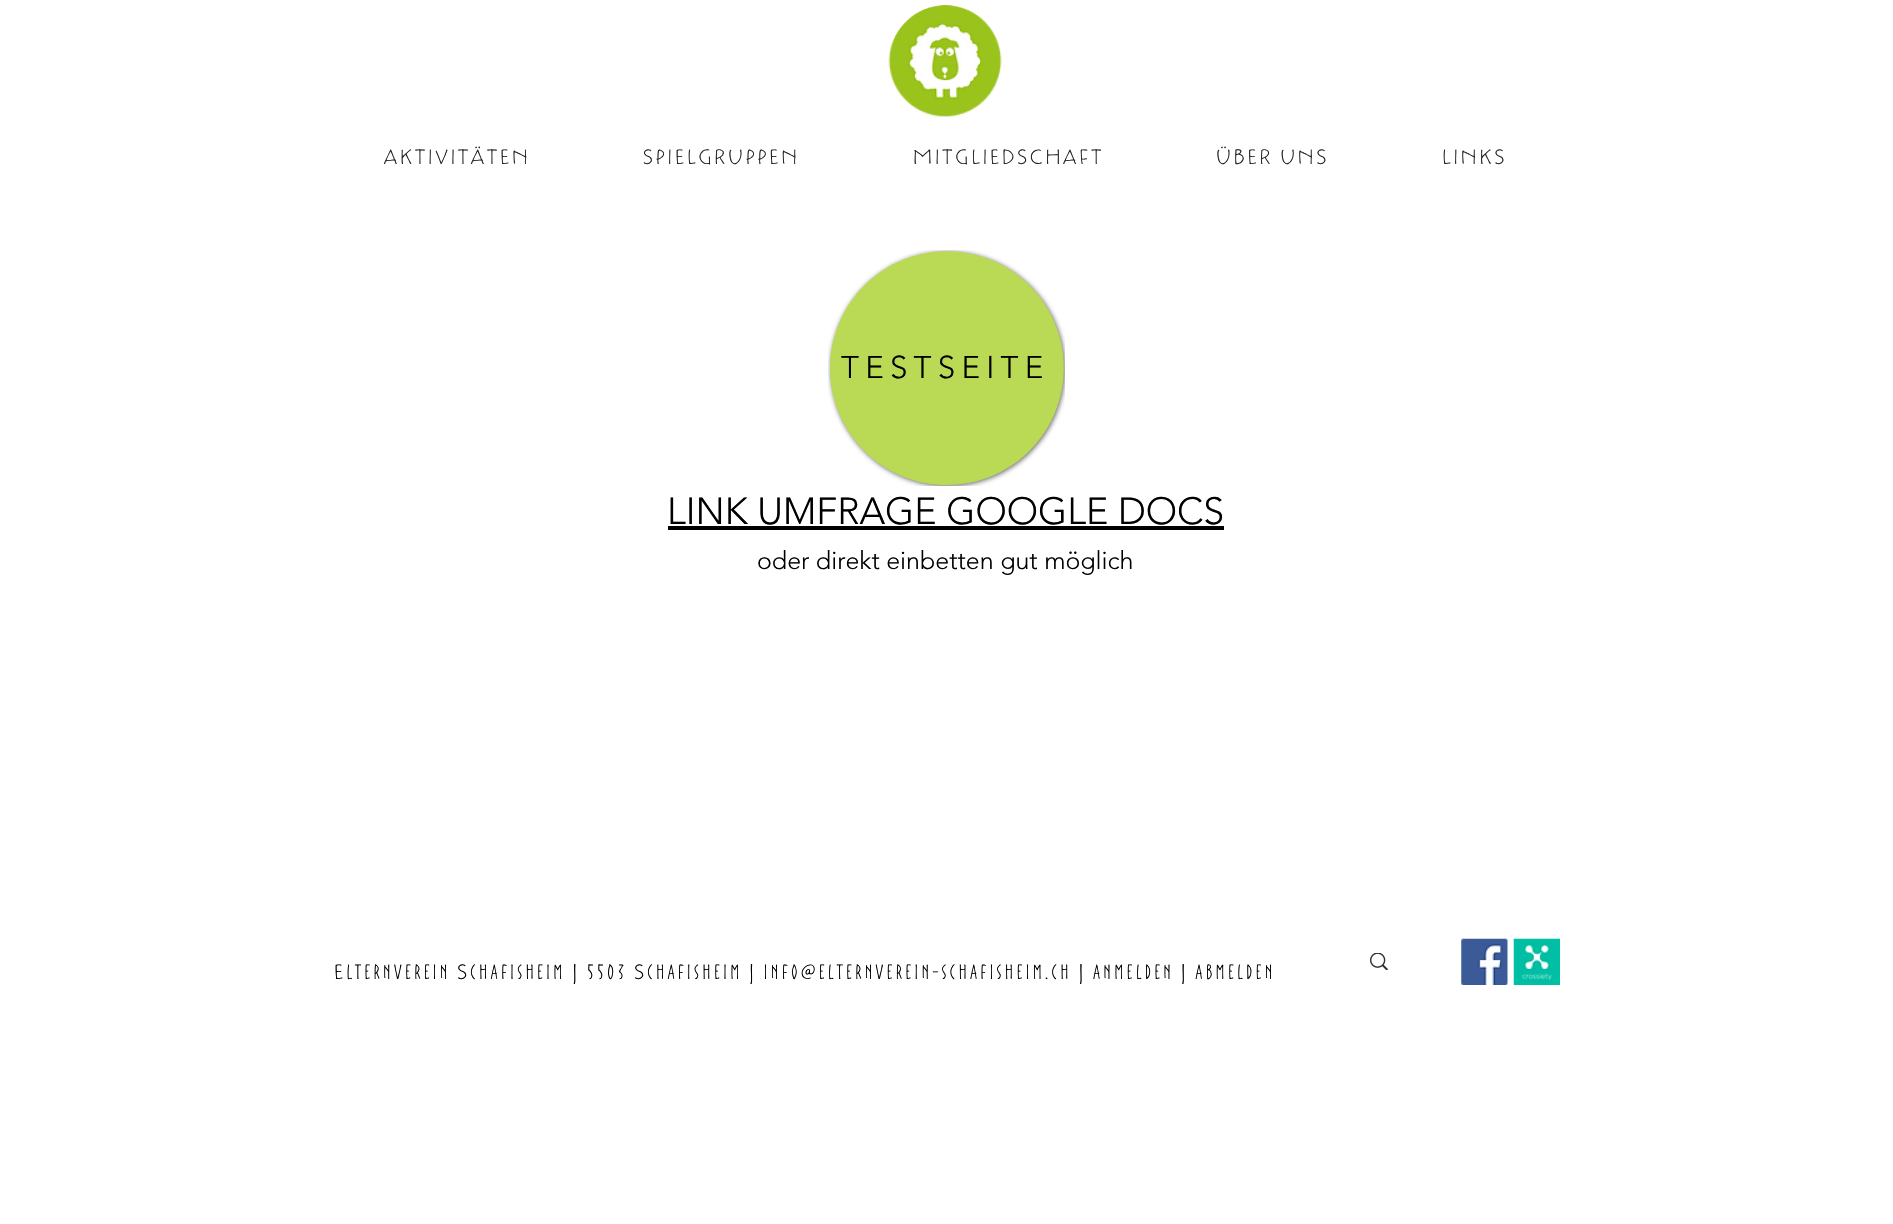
void draw(SkCanvas* canvas) {
	SkPaint paint;
	paint.setAntiAlias(true);
	auto spacedText = [&](const char* s, float x, float y, const SkFont& font, const SkPaint& ink, float letter, float word) {
		std::vector<SkGlyphID> glyphs(font.countText(s, strlen(s), SkTextEncoding::kUTF8));
		std::vector<float> xs(glyphs.size());
		font.textToGlyphs(s, strlen(s), SkTextEncoding::kUTF8, glyphs);
		font.getXPos(glyphs, xs, x);
		float extra = 0;
		for (size_t i = 0; i < glyphs.size(); i++) {
			xs[i] += extra;
			extra += letter + word * (glyphs[i] == font.unicharToGlyph(' '));
		}
		canvas->drawTextBlob(SkTextBlob::MakeFromPosHGlyphs(glyphs, xs, y, font), 0, 0, ink);
	};
	canvas->clear(0xffffffff);
	canvas->drawImageRect(SkImages::DeferredFromEncodedData(SkData::MakeFromFileName("img1.png")), SkRect::MakeXYWH(888, 5, 114, 113), SkSamplingOptions());
	SkFont f1(fontMgr->matchFamilyStyle("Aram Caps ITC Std", SkFontStyle::Normal()), 20);
	f1.setSubpixel(true);
	paint.setColor(0xff242323);
	spacedText("AKTIVITÄTEN", 384, 164, f1, paint, 3, 0);
	spacedText("SPIELGRUPPEN", 643, 164, f1, paint, 3, 0);
	spacedText("MITGLIEDSCHAFT", 913, 164, f1, paint, 3, 0);
	spacedText("ÜBER UNS", 1216, 164, f1, paint, 3, 0);
	spacedText("LINKS", 1442, 164, f1, paint, 3, 0);
	canvas->drawImageRect(SkImages::DeferredFromEncodedData(SkData::MakeFromFileName("img2.png")), SkRect::MakeXYWH(828, 250, 237, 236), SkSamplingOptions());
	SkFont f2(fontMgr->matchFamilyStyle("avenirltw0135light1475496", SkFontStyle(300, SkFontStyle::kNormal_Width, SkFontStyle::kUpright_Slant)), 31.25);
	f2.setSubpixel(true);
	paint.setColor(0xff000000);
	spacedText("TESTSEITE", 841, 378, f2, paint, 6.25, 0);
	SkFont f3(fontMgr->matchFamilyStyle("avenirltw0135light1475496", SkFontStyle(300, SkFontStyle::kNormal_Width, SkFontStyle::kUpright_Slant)), 37.5);
	f3.setSubpixel(true);
	canvas->drawString("LINK UMFRAGE GOOGLE DOCS", 667, 524, f3, paint);
	canvas->drawRect(SkRect::MakeXYWH(668, 526, 556, 4), paint);
	SkFont f4(fontMgr->matchFamilyStyle("avenirltw0135light1475496", SkFontStyle(300, SkFontStyle::kNormal_Width, SkFontStyle::kUpright_Slant)), 25);
	f4.setSubpixel(true);
	canvas->drawString("oder direkt einbetten gut möglich", 757, 569, f4, paint);
	canvas->drawImageRect(SkImages::DeferredFromEncodedData(SkData::MakeFromFileName("img3.png")), SkRect::MakeXYWH(1370, 953, 18, 17), SkSamplingOptions());
	canvas->drawImageRect(SkImages::DeferredFromEncodedData(SkData::MakeFromFileName("img4.png")), SkRect::MakeXYWH(1461, 938, 47, 47), SkSamplingOptions());
	canvas->drawImageRect(SkImages::DeferredFromEncodedData(SkData::MakeFromFileName("img5.png")), SkRect::MakeXYWH(1513, 938, 47, 47), SkSamplingOptions());
	spacedText("Elternverein Schafisheim | 5503 Schafisheim | info@elternverein-schafisheim.ch | anmelden | abmelden", 334, 979, f1, paint, 3, 0);
}
